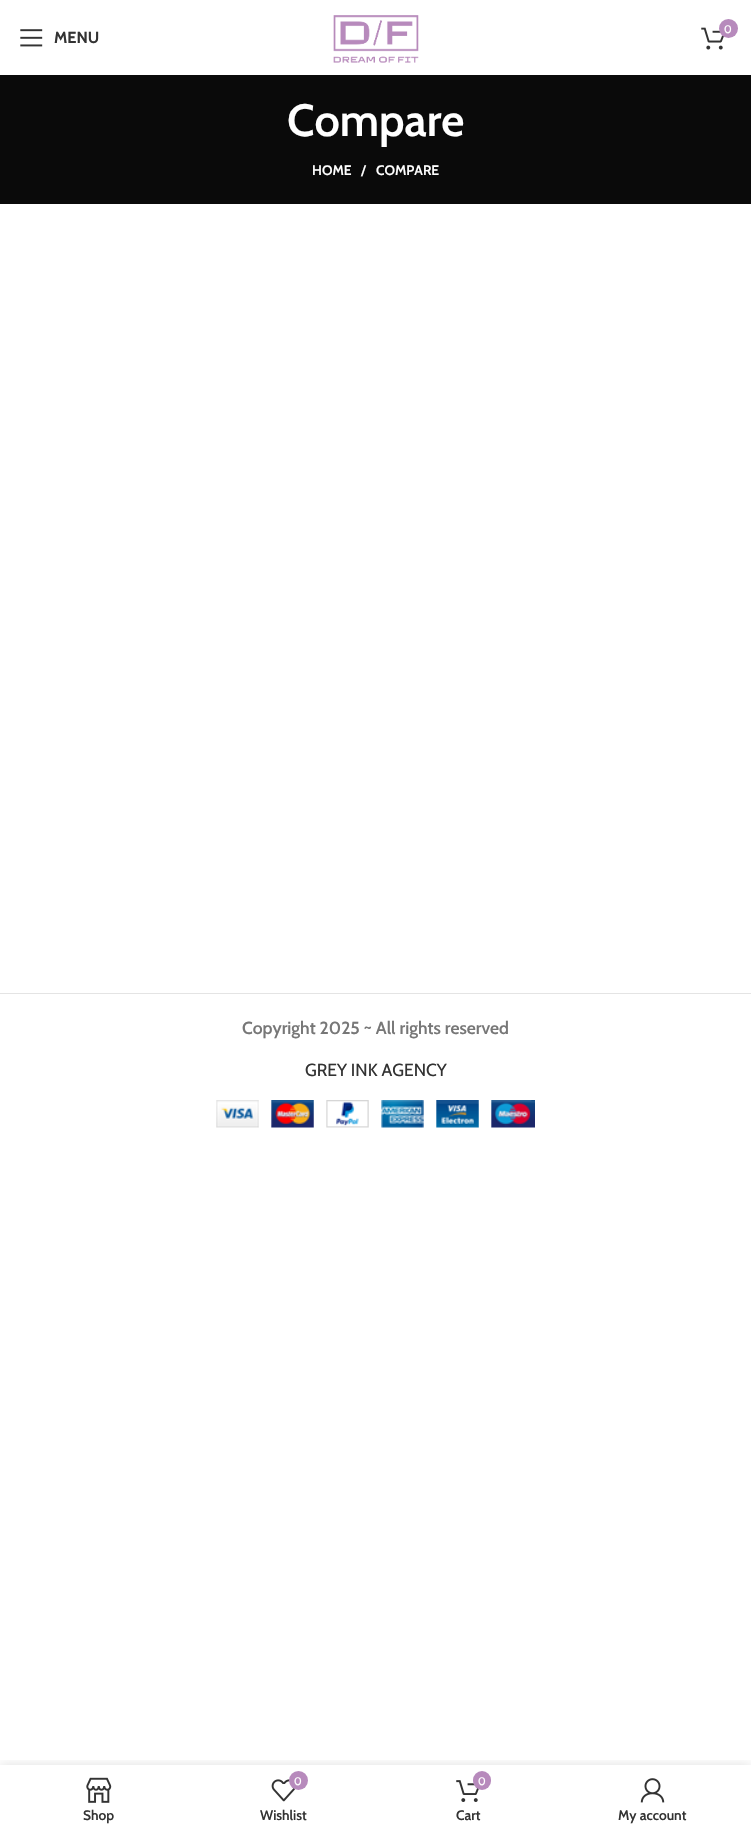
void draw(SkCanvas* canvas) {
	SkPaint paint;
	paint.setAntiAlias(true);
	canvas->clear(0xffffffff);
	canvas->drawImageRect(SkImages::DeferredFromEncodedData(SkData::MakeFromFileName("img1.png")), SkRect::MakeXYWH(333, 15, 86, 48), SkSamplingOptions());
	canvas->drawImageRect(SkImages::DeferredFromEncodedData(SkData::MakeFromFileName("img2.png")), SkRect::MakeXYWH(701, 27, 23, 23), SkSamplingOptions());
	paint.setColor(0xffb78abc);
	canvas->drawCircle(728.5, 28.5, 9.5, paint);
	SkFont f1(fontMgr->matchFamilyStyle("Cabin", SkFontStyle::Normal()), 11);
	f1.setSubpixel(true);
	paint.setColor(0xffffffff);
	canvas->drawString("0", 724, 33, f1, paint);
	canvas->drawImageRect(SkImages::DeferredFromEncodedData(SkData::MakeFromFileName("img3.png")), SkRect::MakeXYWH(20, 29, 23, 18), SkSamplingOptions());
	SkFont f2(fontMgr->matchFamilyStyle("Cabin", SkFontStyle::Bold()), 16);
	f2.setSubpixel(true);
	paint.setColor(0xff333333);
	canvas->drawString("MENU", 54, 43, f2, paint);
	paint.setColor(0xff0a0a0a);
	canvas->drawRect(SkRect::MakeXYWH(0, 75, 751, 129), paint);
	SkFont f3(fontMgr->matchFamilyStyle("Cabin", SkFontStyle(600, SkFontStyle::kNormal_Width, SkFontStyle::kUpright_Slant)), 45);
	f3.setSubpixel(true);
	paint.setColor(0xffffffff);
	canvas->drawString("Compare", 287, 136, f3, paint);
	SkFont f4(fontMgr->matchFamilyStyle("Cabin", SkFontStyle(600, SkFontStyle::kNormal_Width, SkFontStyle::kUpright_Slant)), 13.75);
	f4.setSubpixel(true);
	canvas->drawString("HOME", 312, 175, f4, paint);
	canvas->drawString("/", 361, 175, f4, paint);
	canvas->drawString("COMPARE", 376, 175, f4, paint);
	paint.setColor(0xffe4e4e4);
	canvas->drawRect(SkRect::MakeXYWH(0, 993, 751, 1), paint);
	SkFont f5(fontMgr->matchFamilyStyle("Cabin", SkFontStyle(600, SkFontStyle::kNormal_Width, SkFontStyle::kUpright_Slant)), 17.5);
	f5.setSubpixel(true);
	paint.setColor(0xff777777);
	canvas->drawString("Copyright 2025 ~ All rights reserved", 242, 1034, f5, paint);
	SkFont f6(fontMgr->matchFamilyStyle("Cabin", SkFontStyle::Normal()), 17.5);
	f6.setSubpixel(true);
	paint.setColor(0xff333333);
	canvas->drawString("GREY INK AGENCY", 305, 1076, f6, paint);
	canvas->drawImageRect(SkImages::DeferredFromEncodedData(SkData::MakeFromFileName("img4.png")), SkRect::MakeXYWH(216, 1100, 319, 28), SkSamplingOptions());
	canvas->save();
	canvas->clipRect(SkRect::MakeXYWH(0, 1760, 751, 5));
	paint.setColor(0x1f000000);
	paint.setMaskFilter(SkMaskFilter::MakeBlur(kNormal_SkBlurStyle, 5.5));
	canvas->drawRect(SkRect::MakeXYWH(0, 1765, 751, 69), paint);
	paint.setMaskFilter(nullptr);
	canvas->restore();
	canvas->drawImageRect(SkImages::DeferredFromEncodedData(SkData::MakeFromFileName("img5.png")), SkRect::MakeXYWH(86, 1777, 26, 26), SkSamplingOptions());
	paint.setColor(0xff333333);
	canvas->drawString("Shop", 83, 1820, f4, paint);
	canvas->drawImageRect(SkImages::DeferredFromEncodedData(SkData::MakeFromFileName("img6.png")), SkRect::MakeXYWH(271, 1779, 24, 23), SkSamplingOptions());
	paint.setColor(0xffb78abc);
	canvas->drawCircle(298.5, 1780.5, 9.5, paint);
	paint.setColor(0xffffffff);
	canvas->drawString("0", 294, 1785, f1, paint);
	paint.setColor(0xff333333);
	canvas->drawString("Wishlist", 260, 1820, f4, paint);
	canvas->drawImageRect(SkImages::DeferredFromEncodedData(SkData::MakeFromFileName("img7.png")), SkRect::MakeXYWH(456, 1780, 23, 22), SkSamplingOptions());
	paint.setColor(0xffb78abc);
	canvas->drawRoundRect(SkRect::MakeXYWH(473, 1771, 18, 19), 9, 9, paint);
	paint.setColor(0xffffffff);
	canvas->drawString("0", 478, 1785, f1, paint);
	paint.setColor(0xff333333);
	canvas->drawString("Cart", 456, 1820, f4, paint);
	canvas->drawImageRect(SkImages::DeferredFromEncodedData(SkData::MakeFromFileName("img8.png")), SkRect::MakeXYWH(640, 1778, 25, 25), SkSamplingOptions());
	canvas->drawString("My account", 618, 1820, f4, paint);
}
